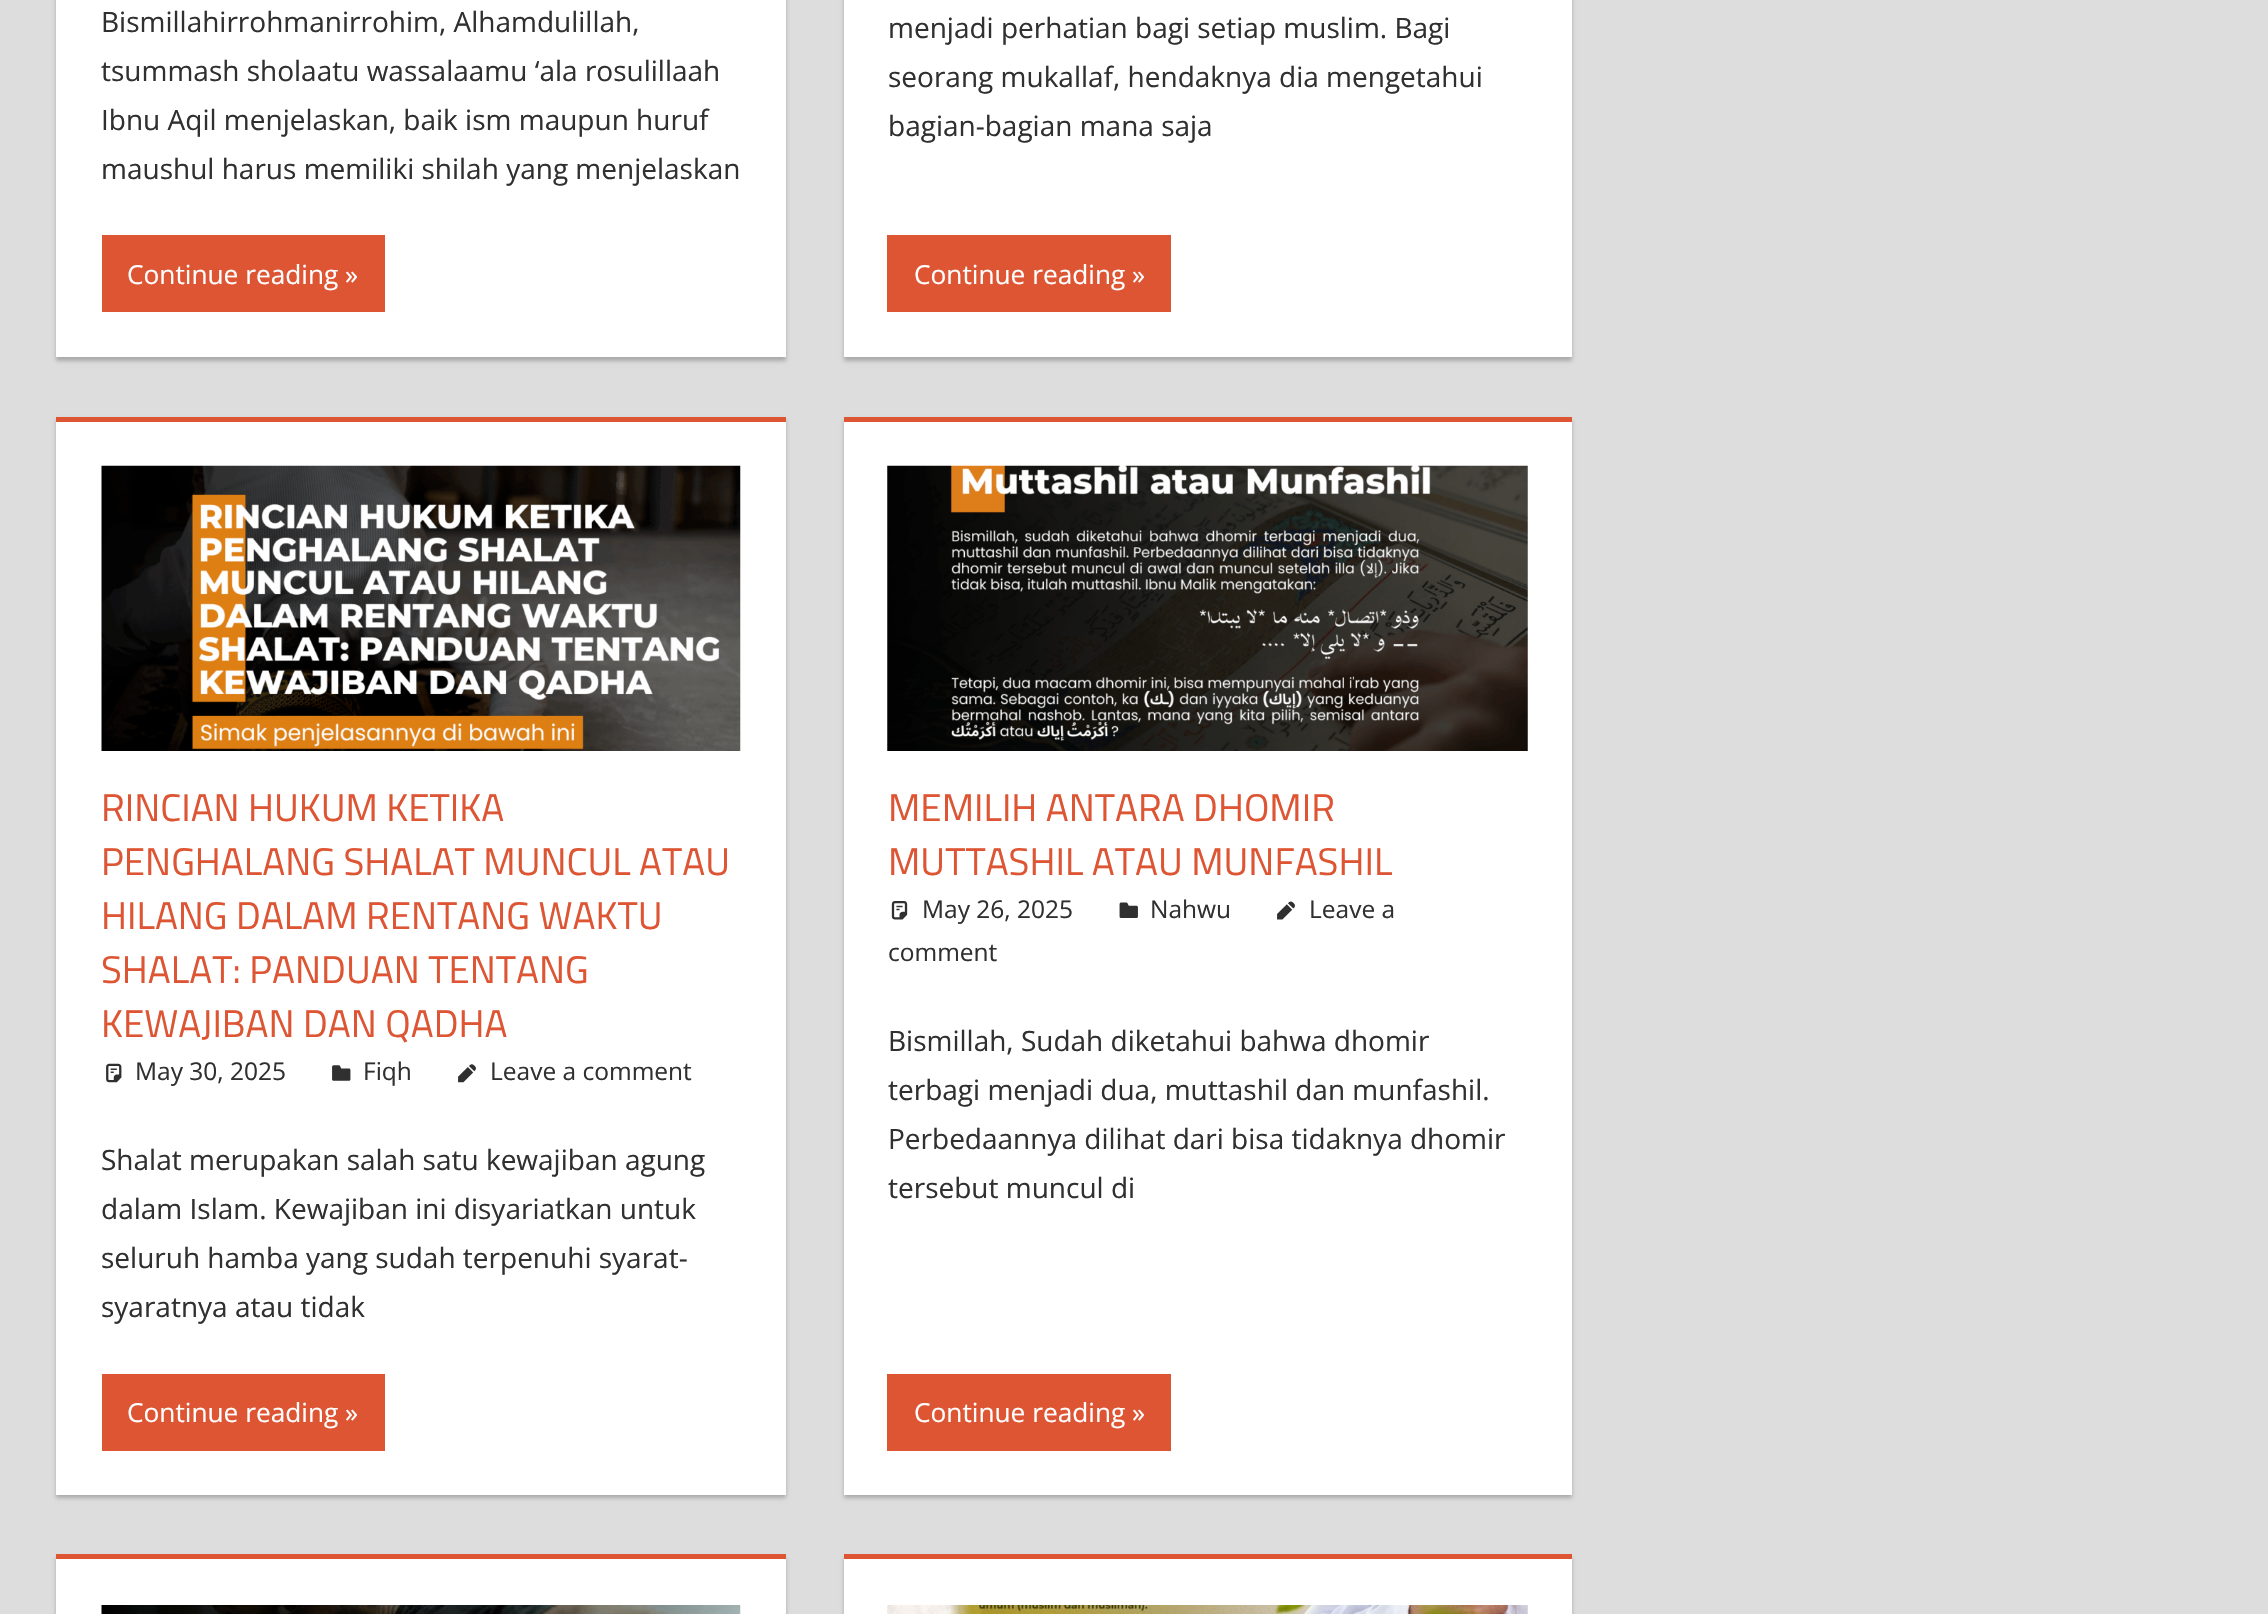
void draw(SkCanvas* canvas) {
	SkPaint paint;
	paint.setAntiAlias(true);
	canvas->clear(0xffdddddd);
	paint.setColor(0xffaaaaaa);
	paint.setMaskFilter(SkMaskFilter::MakeBlur(kNormal_SkBlurStyle, 2));
	canvas->drawRect(SkRect::MakeXYWH(56, -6, 730, 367), paint);
	paint.setMaskFilter(nullptr);
	paint.setColor(0xffffffff);
	canvas->drawRect(SkRect::MakeXYWH(56, 0, 730, 357), paint);
	SkFont f1(fontMgr->matchFamilyStyle("Open Sans", SkFontStyle::Normal()), 28);
	f1.setSubpixel(true);
	paint.setColor(0xff303030);
	canvas->drawString("Bismillahirrohmanirrohim, Alhamdulillah,", 101, 32, f1, paint);
	canvas->drawString("tsummash sholaatu wassalaamu ‘ala rosulillaah", 101, 81, f1, paint);
	canvas->drawString("Ibnu Aqil menjelaskan, baik ism maupun huruf", 101, 130, f1, paint);
	canvas->drawString("maushul harus memiliki shilah yang menjelaskan", 101, 179, f1, paint);
	paint.setColor(0xffdd5533);
	canvas->drawRect(SkRect::MakeXYWH(102, 235, 283, 77), paint);
	SkFont f2(fontMgr->matchFamilyStyle("Open Sans", SkFontStyle::Normal()), 26.25);
	f2.setSubpixel(true);
	paint.setColor(0xffffffff);
	canvas->drawString("Continue reading »", 127, 284, f2, paint);
	paint.setColor(0xffaaaaaa);
	paint.setMaskFilter(SkMaskFilter::MakeBlur(kNormal_SkBlurStyle, 2));
	canvas->drawRect(SkRect::MakeXYWH(844, -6, 728, 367), paint);
	paint.setMaskFilter(nullptr);
	paint.setColor(0xffffffff);
	canvas->drawRect(SkRect::MakeXYWH(844, 0, 728, 357), paint);
	paint.setColor(0xff303030);
	canvas->drawString("menjadi perhatian bagi setiap muslim. Bagi", 888, 38, f1, paint);
	canvas->drawString("seorang mukallaf, hendaknya dia mengetahui", 888, 87, f1, paint);
	canvas->drawString("bagian-bagian mana saja", 888, 136, f1, paint);
	paint.setColor(0xffdd5533);
	canvas->drawRect(SkRect::MakeXYWH(887, 235, 284, 77), paint);
	paint.setColor(0xffffffff);
	canvas->drawString("Continue reading »", 914, 284, f2, paint);
	paint.setColor(0xffaaaaaa);
	paint.setMaskFilter(SkMaskFilter::MakeBlur(kNormal_SkBlurStyle, 2));
	canvas->drawRect(SkRect::MakeXYWH(56, 420, 730, 1078), paint);
	paint.setMaskFilter(nullptr);
	paint.setColor(0xffffffff);
	canvas->drawRect(SkRect::MakeXYWH(56, 422, 730, 1073), paint);
	paint.setColor(0xffdd5533);
	canvas->drawRect(SkRect::MakeXYWH(56, 417, 730, 5), paint);
	canvas->drawImageRect(SkImages::DeferredFromEncodedData(SkData::MakeFromFileName("img1.png")), SkRect::MakeXYWH(101, 465, 640, 286), SkSamplingOptions());
	SkFont f3(fontMgr->matchFamilyStyle("Titillium Web", SkFontStyle::Normal()), 38.5);
	f3.setSubpixel(true);
	canvas->drawString("RINCIAN HUKUM KETIKA", 101, 821, f3, paint);
	canvas->drawString("PENGHALANG SHALAT MUNCUL ATAU", 101, 875, f3, paint);
	canvas->drawString("HILANG DALAM RENTANG WAKTU", 101, 929, f3, paint);
	canvas->drawString("SHALAT: PANDUAN TENTANG", 101, 983, f3, paint);
	canvas->drawString("KEWAJIBAN DAN QADHA", 101, 1037, f3, paint);
	canvas->drawImageRect(SkImages::DeferredFromEncodedData(SkData::MakeFromFileName("img2.png")), SkRect::MakeXYWH(106, 1063, 16, 20), SkSamplingOptions());
	SkFont f4(fontMgr->matchFamilyStyle("Open Sans", SkFontStyle::Normal()), 24.5);
	f4.setSubpixel(true);
	paint.setColor(0xff303030);
	canvas->drawString("May 30, 2025", 135, 1080, f4, paint);
	canvas->drawImageRect(SkImages::DeferredFromEncodedData(SkData::MakeFromFileName("img3.png")), SkRect::MakeXYWH(332, 1065, 19, 16), SkSamplingOptions());
	canvas->drawString("Fiqh", 363, 1080, f4, paint);
	canvas->drawImageRect(SkImages::DeferredFromEncodedData(SkData::MakeFromFileName("img4.png")), SkRect::MakeXYWH(458, 1064, 18, 19), SkSamplingOptions());
	canvas->drawString("Leave a comment", 490, 1080, f4, paint);
	canvas->drawString("Shalat merupakan salah satu kewajiban agung", 101, 1170, f1, paint);
	canvas->drawString("dalam Islam. Kewajiban ini disyariatkan untuk", 101, 1219, f1, paint);
	canvas->drawString("seluruh hamba yang sudah terpenuhi syarat-", 101, 1268, f1, paint);
	canvas->drawString("syaratnya atau tidak", 101, 1317, f1, paint);
	paint.setColor(0xffdd5533);
	canvas->drawRect(SkRect::MakeXYWH(102, 1374, 283, 77), paint);
	paint.setColor(0xffffffff);
	canvas->drawString("Continue reading »", 127, 1422, f2, paint);
	paint.setColor(0xffaaaaaa);
	paint.setMaskFilter(SkMaskFilter::MakeBlur(kNormal_SkBlurStyle, 2));
	canvas->drawRect(SkRect::MakeXYWH(844, 420, 728, 1078), paint);
	paint.setMaskFilter(nullptr);
	paint.setColor(0xffffffff);
	canvas->drawRect(SkRect::MakeXYWH(844, 422, 728, 1073), paint);
	paint.setColor(0xffdd5533);
	canvas->drawRect(SkRect::MakeXYWH(844, 417, 728, 5), paint);
	canvas->drawImageRect(SkImages::DeferredFromEncodedData(SkData::MakeFromFileName("img5.png")), SkRect::MakeXYWH(887, 465, 641, 286), SkSamplingOptions());
	canvas->drawString("MEMILIH ANTARA DHOMIR", 888, 821, f3, paint);
	canvas->drawString("MUTTASHIL ATAU MUNFASHIL", 888, 875, f3, paint);
	canvas->drawImageRect(SkImages::DeferredFromEncodedData(SkData::MakeFromFileName("img6.png")), SkRect::MakeXYWH(891, 901, 17, 19), SkSamplingOptions());
	paint.setColor(0xff303030);
	canvas->drawString("May 26, 2025", 922, 918, f4, paint);
	canvas->drawImageRect(SkImages::DeferredFromEncodedData(SkData::MakeFromFileName("img7.png")), SkRect::MakeXYWH(1119, 902, 19, 16), SkSamplingOptions());
	canvas->drawString("Nahwu", 1150, 918, f4, paint);
	canvas->drawImageRect(SkImages::DeferredFromEncodedData(SkData::MakeFromFileName("img8.png")), SkRect::MakeXYWH(1277, 901, 18, 19), SkSamplingOptions());
	canvas->drawString("Leave a", 1309, 918, f4, paint);
	canvas->drawString("comment", 888, 961, f4, paint);
	canvas->drawString("Bismillah, Sudah diketahui bahwa dhomir", 888, 1051, f1, paint);
	canvas->drawString("terbagi menjadi dua, muttashil dan munfashil.", 888, 1100, f1, paint);
	canvas->drawString("Perbedaannya dilihat dari bisa tidaknya dhomir", 888, 1149, f1, paint);
	canvas->drawString("tersebut muncul di", 888, 1198, f1, paint);
	paint.setColor(0xffdd5533);
	canvas->drawRect(SkRect::MakeXYWH(887, 1374, 284, 77), paint);
	paint.setColor(0xffffffff);
	canvas->drawString("Continue reading »", 914, 1422, f2, paint);
	paint.setColor(0xffaaaaaa);
	paint.setMaskFilter(SkMaskFilter::MakeBlur(kNormal_SkBlurStyle, 2));
	canvas->drawRect(SkRect::MakeXYWH(56, 1558, 730, 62), paint);
	paint.setMaskFilter(nullptr);
	paint.setColor(0xffffffff);
	canvas->drawRect(SkRect::MakeXYWH(56, 1559, 730, 55), paint);
	paint.setColor(0xffdd5533);
	canvas->drawRect(SkRect::MakeXYWH(56, 1554, 730, 5), paint);
	canvas->drawImageRect(SkImages::DeferredFromEncodedData(SkData::MakeFromFileName("img9.png")), SkRect::MakeXYWH(101, 1605, 640, 9), SkSamplingOptions());
	paint.setColor(0xffaaaaaa);
	paint.setMaskFilter(SkMaskFilter::MakeBlur(kNormal_SkBlurStyle, 2));
	canvas->drawRect(SkRect::MakeXYWH(844, 1558, 728, 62), paint);
	paint.setMaskFilter(nullptr);
	paint.setColor(0xffffffff);
	canvas->drawRect(SkRect::MakeXYWH(844, 1559, 728, 55), paint);
	paint.setColor(0xffdd5533);
	canvas->drawRect(SkRect::MakeXYWH(844, 1554, 728, 5), paint);
	canvas->drawImageRect(SkImages::DeferredFromEncodedData(SkData::MakeFromFileName("img10.png")), SkRect::MakeXYWH(887, 1605, 641, 9), SkSamplingOptions());
}
